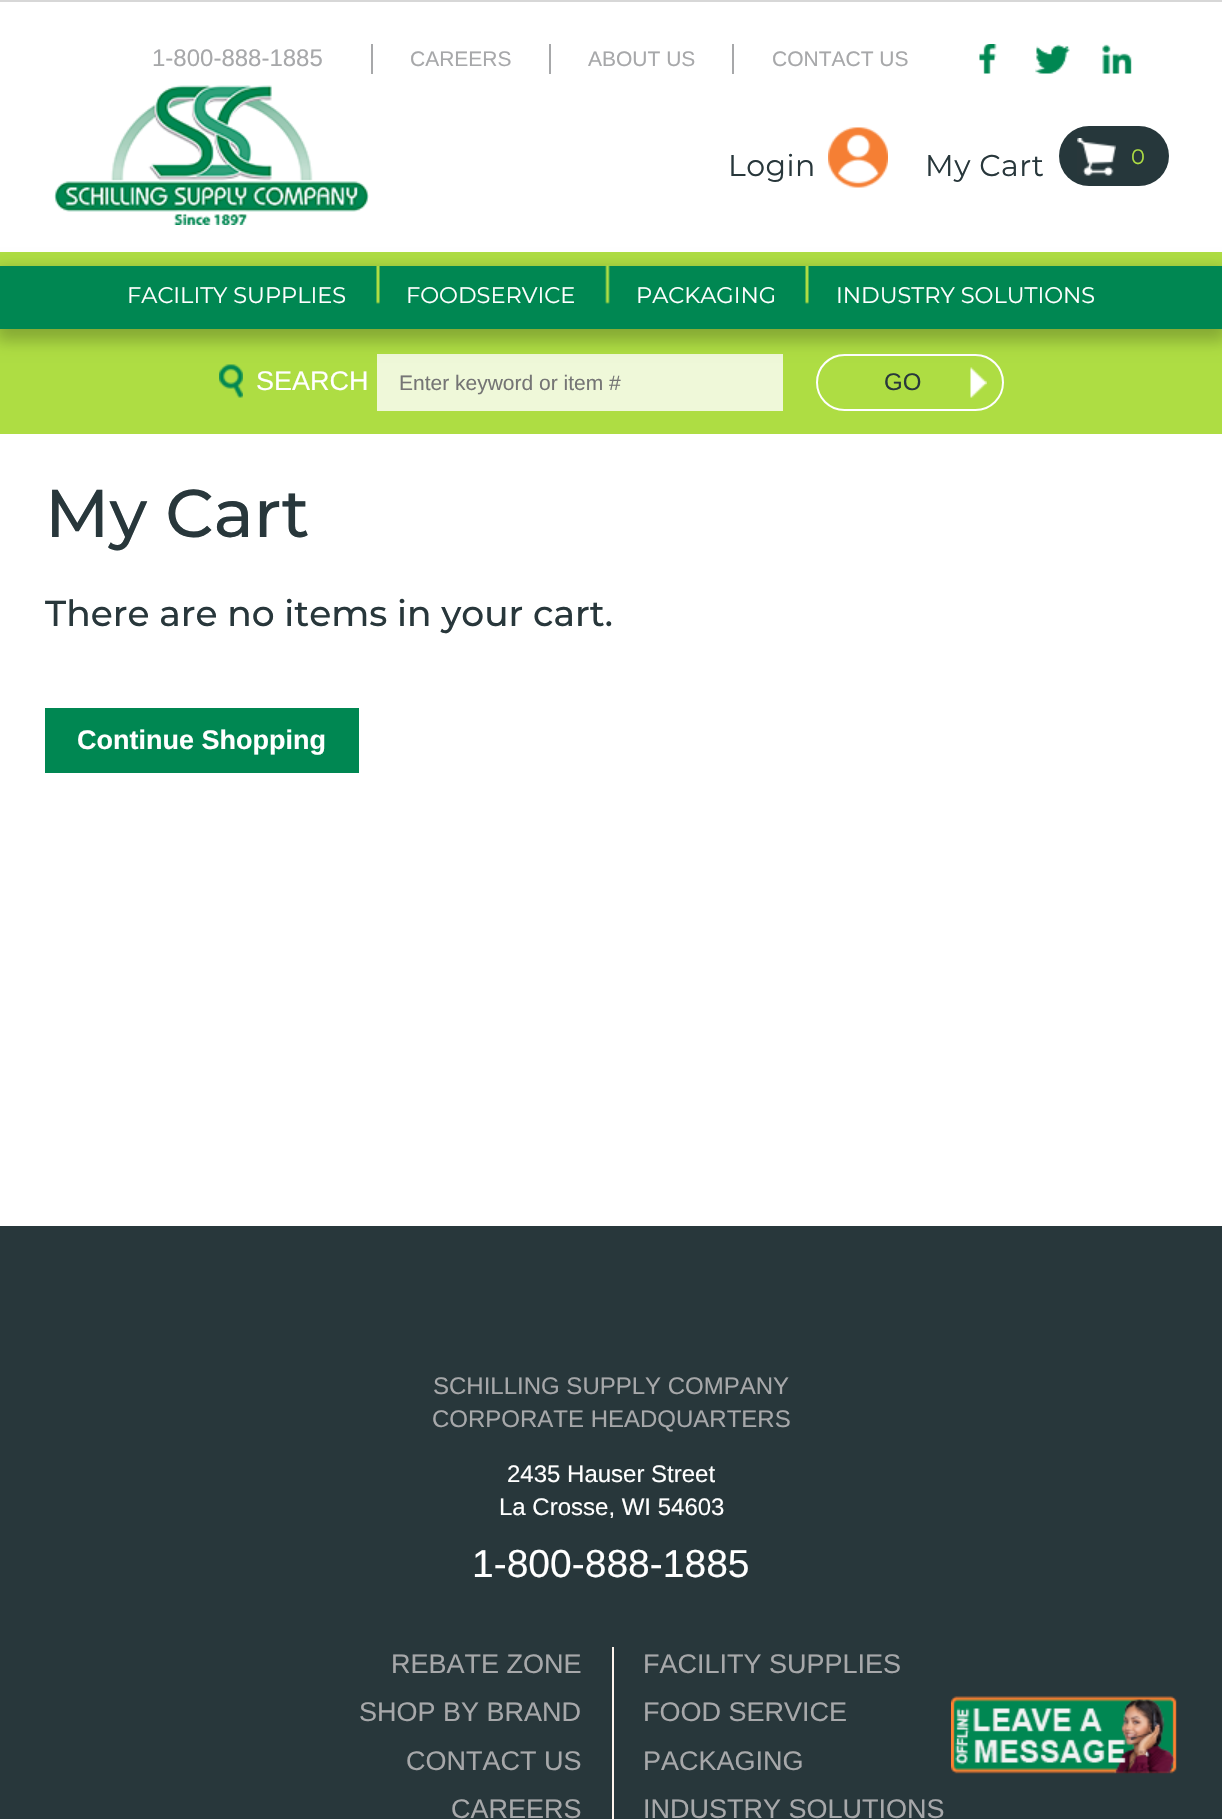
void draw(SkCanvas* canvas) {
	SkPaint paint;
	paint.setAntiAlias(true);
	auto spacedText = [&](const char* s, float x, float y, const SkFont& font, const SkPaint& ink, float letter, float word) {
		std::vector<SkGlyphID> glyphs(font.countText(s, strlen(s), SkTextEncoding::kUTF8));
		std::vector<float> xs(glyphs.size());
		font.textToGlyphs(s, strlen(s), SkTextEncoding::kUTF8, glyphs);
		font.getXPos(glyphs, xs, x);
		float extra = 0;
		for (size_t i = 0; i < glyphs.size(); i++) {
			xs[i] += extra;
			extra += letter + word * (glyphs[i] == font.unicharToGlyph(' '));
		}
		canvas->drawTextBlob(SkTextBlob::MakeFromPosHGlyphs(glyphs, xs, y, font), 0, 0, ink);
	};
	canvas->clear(0xffffffff);
	paint.setColor(0xffd7d7d7);
	canvas->drawRect(SkRect::MakeXYWH(0, 0, 1222, 2), paint);
	SkFont f1(fontMgr->matchFamilyStyle("Liberation Sans", SkFontStyle::Normal()), 24);
	f1.setSubpixel(true);
	paint.setColor(0xffa7a8aa);
	canvas->drawString("1-800-888-1885", 152, 66, f1, paint);
	canvas->drawRect(SkRect::MakeXYWH(371, 44, 2, 30), paint);
	SkFont f2(fontMgr->matchFamilyStyle("Liberation Sans", SkFontStyle::Normal()), 21);
	f2.setSubpixel(true);
	canvas->drawString("CAREERS", 410, 66, f2, paint);
	canvas->drawRect(SkRect::MakeXYWH(549, 44, 2, 30), paint);
	canvas->drawString("ABOUT US", 588, 66, f2, paint);
	canvas->drawRect(SkRect::MakeXYWH(732, 44, 2, 30), paint);
	canvas->drawString("CONTACT US", 772, 66, f2, paint);
	canvas->drawImageRect(SkImages::DeferredFromEncodedData(SkData::MakeFromFileName("img1.png")), SkRect::MakeXYWH(979, 44, 18, 30), SkSamplingOptions());
	canvas->drawImageRect(SkImages::DeferredFromEncodedData(SkData::MakeFromFileName("img2.png")), SkRect::MakeXYWH(1035, 44, 35, 30), SkSamplingOptions());
	canvas->drawImageRect(SkImages::DeferredFromEncodedData(SkData::MakeFromFileName("img3.png")), SkRect::MakeXYWH(1102, 44, 30, 30), SkSamplingOptions());
	paint.setColor(0xffaedd43);
	canvas->drawRect(SkRect::MakeXYWH(0, 252, 1222, 14), paint);
	canvas->drawImageRect(SkImages::DeferredFromEncodedData(SkData::MakeFromFileName("img4.png")), SkRect::MakeXYWH(54, 85, 315, 140), SkSamplingOptions());
	canvas->drawImageRect(SkImages::DeferredFromEncodedData(SkData::MakeFromFileName("img5.png")), SkRect::MakeXYWH(828, 127, 60, 61), SkSamplingOptions());
	SkFont f3(fontMgr->matchFamilyStyle("Montserrat", SkFontStyle::Normal()), 30);
	f3.setSubpixel(true);
	paint.setColor(0xff28373b);
	spacedText("Login", 728, 176, f3, paint, 0.5, 0);
	spacedText("My Cart", 925, 176, f3, paint, 0.5, 0);
	paint.setColor(0xff26373b);
	canvas->drawRoundRect(SkRect::MakeXYWH(1059, 126, 110, 60), 30, 30, paint);
	canvas->drawImageRect(SkImages::DeferredFromEncodedData(SkData::MakeFromFileName("img6.png")), SkRect::MakeXYWH(1077, 138, 39, 38), SkSamplingOptions());
	SkFont f4(fontMgr->matchFamilyStyle("Montserrat", SkFontStyle::Normal()), 21);
	f4.setSubpixel(true);
	paint.setColor(0xffaedd43);
	spacedText("0", 1131, 164, f4, paint, 0.5, 0);
	canvas->drawRect(SkRect::MakeXYWH(0, 329, 1222, 105), paint);
	canvas->drawImageRect(SkImages::DeferredFromEncodedData(SkData::MakeFromFileName("img9.png")), SkRect::MakeXYWH(219, 364, 24, 34), SkSamplingOptions());
	paint.setColor(0xffeff8d9);
	canvas->drawRect(SkRect::MakeXYWH(377, 354, 406, 57), paint);
	canvas->drawImageRect(SkImages::DeferredFromEncodedData(SkData::MakeFromFileName("img10.png")), SkRect::MakeXYWH(970, 367, 17, 31), SkSamplingOptions());
	paint.setStroke(true);
	paint.setStrokeWidth(2);
	paint.setColor(0xffffffff);
	canvas->drawRoundRect(SkRect::MakeXYWH(817, 355, 186, 55), 27.5, 27.5, paint);
	paint.setStroke(false);
	paint.setColor(0x3b000000);
	paint.setMaskFilter(SkMaskFilter::MakeBlur(kNormal_SkBlurStyle, 7.5));
	canvas->drawRect(SkRect::MakeXYWH(-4, 269, 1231, 72), paint);
	paint.setMaskFilter(nullptr);
	paint.setColor(0xff008752);
	canvas->drawRect(SkRect::MakeXYWH(0, 266, 1222, 63), paint);
	SkFont f5(fontMgr->matchFamilyStyle("Montserrat", SkFontStyle::Normal()), 22.5);
	f5.setSubpixel(true);
	paint.setColor(0xffffffff);
	canvas->drawString("FACILITY SUPPLIES", 127, 303, f5, paint);
	canvas->drawImageRect(SkImages::DeferredFromEncodedData(SkData::MakeFromFileName("img7.png")), SkRect::MakeXYWH(376, 266, 4, 38), SkSamplingOptions());
	canvas->drawString("FOODSERVICE", 406, 303, f5, paint);
	canvas->drawImageRect(SkImages::DeferredFromEncodedData(SkData::MakeFromFileName("img8.png")), SkRect::MakeXYWH(605, 265, 5, 39), SkSamplingOptions());
	canvas->drawString("PACKAGING", 636, 303, f5, paint);
	canvas->drawImageRect(SkImages::DeferredFromEncodedData(SkData::MakeFromFileName("img7.png")), SkRect::MakeXYWH(805, 266, 4, 38), SkSamplingOptions());
	canvas->drawString("INDUSTRY SOLUTIONS", 836, 303, f5, paint);
	SkFont f6(fontMgr->matchFamilyStyle("Liberation Sans", SkFontStyle::Normal()), 27);
	f6.setSubpixel(true);
	canvas->drawString("SEARCH", 256, 390, f6, paint);
	paint.setColor(0xff757575);
	canvas->drawString("Enter keyword or item #", 399, 390, f2, paint);
	paint.setColor(0xff28373b);
	canvas->drawString("GO", 884, 390, f1, paint);
	canvas->drawRect(SkRect::MakeXYWH(0, 1226, 1222, 593), paint);
	canvas->drawImageRect(SkImages::DeferredFromEncodedData(SkData::MakeFromFileName("img11.png")), SkRect::MakeXYWH(951, 1696, 226, 78), SkSamplingOptions());
	SkFont f7(fontMgr->matchFamilyStyle("Montserrat", SkFontStyle(500, SkFontStyle::kNormal_Width, SkFontStyle::kUpright_Slant)), 67.5);
	f7.setSubpixel(true);
	canvas->drawString("My Cart", 45, 537, f7, paint);
	SkFont f8(fontMgr->matchFamilyStyle("Montserrat", SkFontStyle(500, SkFontStyle::kNormal_Width, SkFontStyle::kUpright_Slant)), 36);
	f8.setSubpixel(true);
	canvas->drawString("There are no items in your cart.", 45, 626, f8, paint);
	paint.setColor(0xff008752);
	canvas->drawRect(SkRect::MakeXYWH(45, 708, 314, 65), paint);
	SkFont f9(fontMgr->matchFamilyStyle("Liberation Sans", SkFontStyle::Bold()), 27);
	f9.setSubpixel(true);
	paint.setColor(0xffffffff);
	canvas->drawString("Continue Shopping", 77, 749, f9, paint);
	paint.setColor(0xffa7a8aa);
	canvas->drawString("SCHILLING SUPPLY COMPANY", 433, 1394, f1, paint);
	canvas->drawString("CORPORATE HEADQUARTERS", 432, 1427, f1, paint);
	paint.setColor(0xffffffff);
	canvas->drawString("2435 Hauser Street", 507, 1482, f1, paint);
	canvas->drawString("La Crosse, WI 54603", 499, 1515, f1, paint);
	SkFont f10(fontMgr->matchFamilyStyle("Liberation Sans", SkFontStyle::Normal()), 39);
	f10.setSubpixel(true);
	canvas->drawString("1-800-888-1885", 472, 1577, f10, paint);
	paint.setColor(0xffa7a8aa);
	canvas->drawString("REBATE ZONE", 391, 1673, f6, paint);
	canvas->drawString("SHOP BY BRAND", 359, 1721, f6, paint);
	canvas->drawString("CONTACT US", 406, 1770, f6, paint);
	canvas->drawString("CAREERS", 451, 1818, f6, paint);
	paint.setColor(0xfffff4ec);
	canvas->drawRect(SkRect::MakeXYWH(612, 1647, 2, 172), paint);
	paint.setColor(0xffa7a8aa);
	canvas->drawString("FACILITY SUPPLIES", 643, 1673, f6, paint);
	canvas->drawString("FOOD SERVICE", 643, 1721, f6, paint);
	canvas->drawString("PACKAGING", 643, 1770, f6, paint);
	canvas->drawString("INDUSTRY SOLUTIONS", 643, 1818, f6, paint);
}
